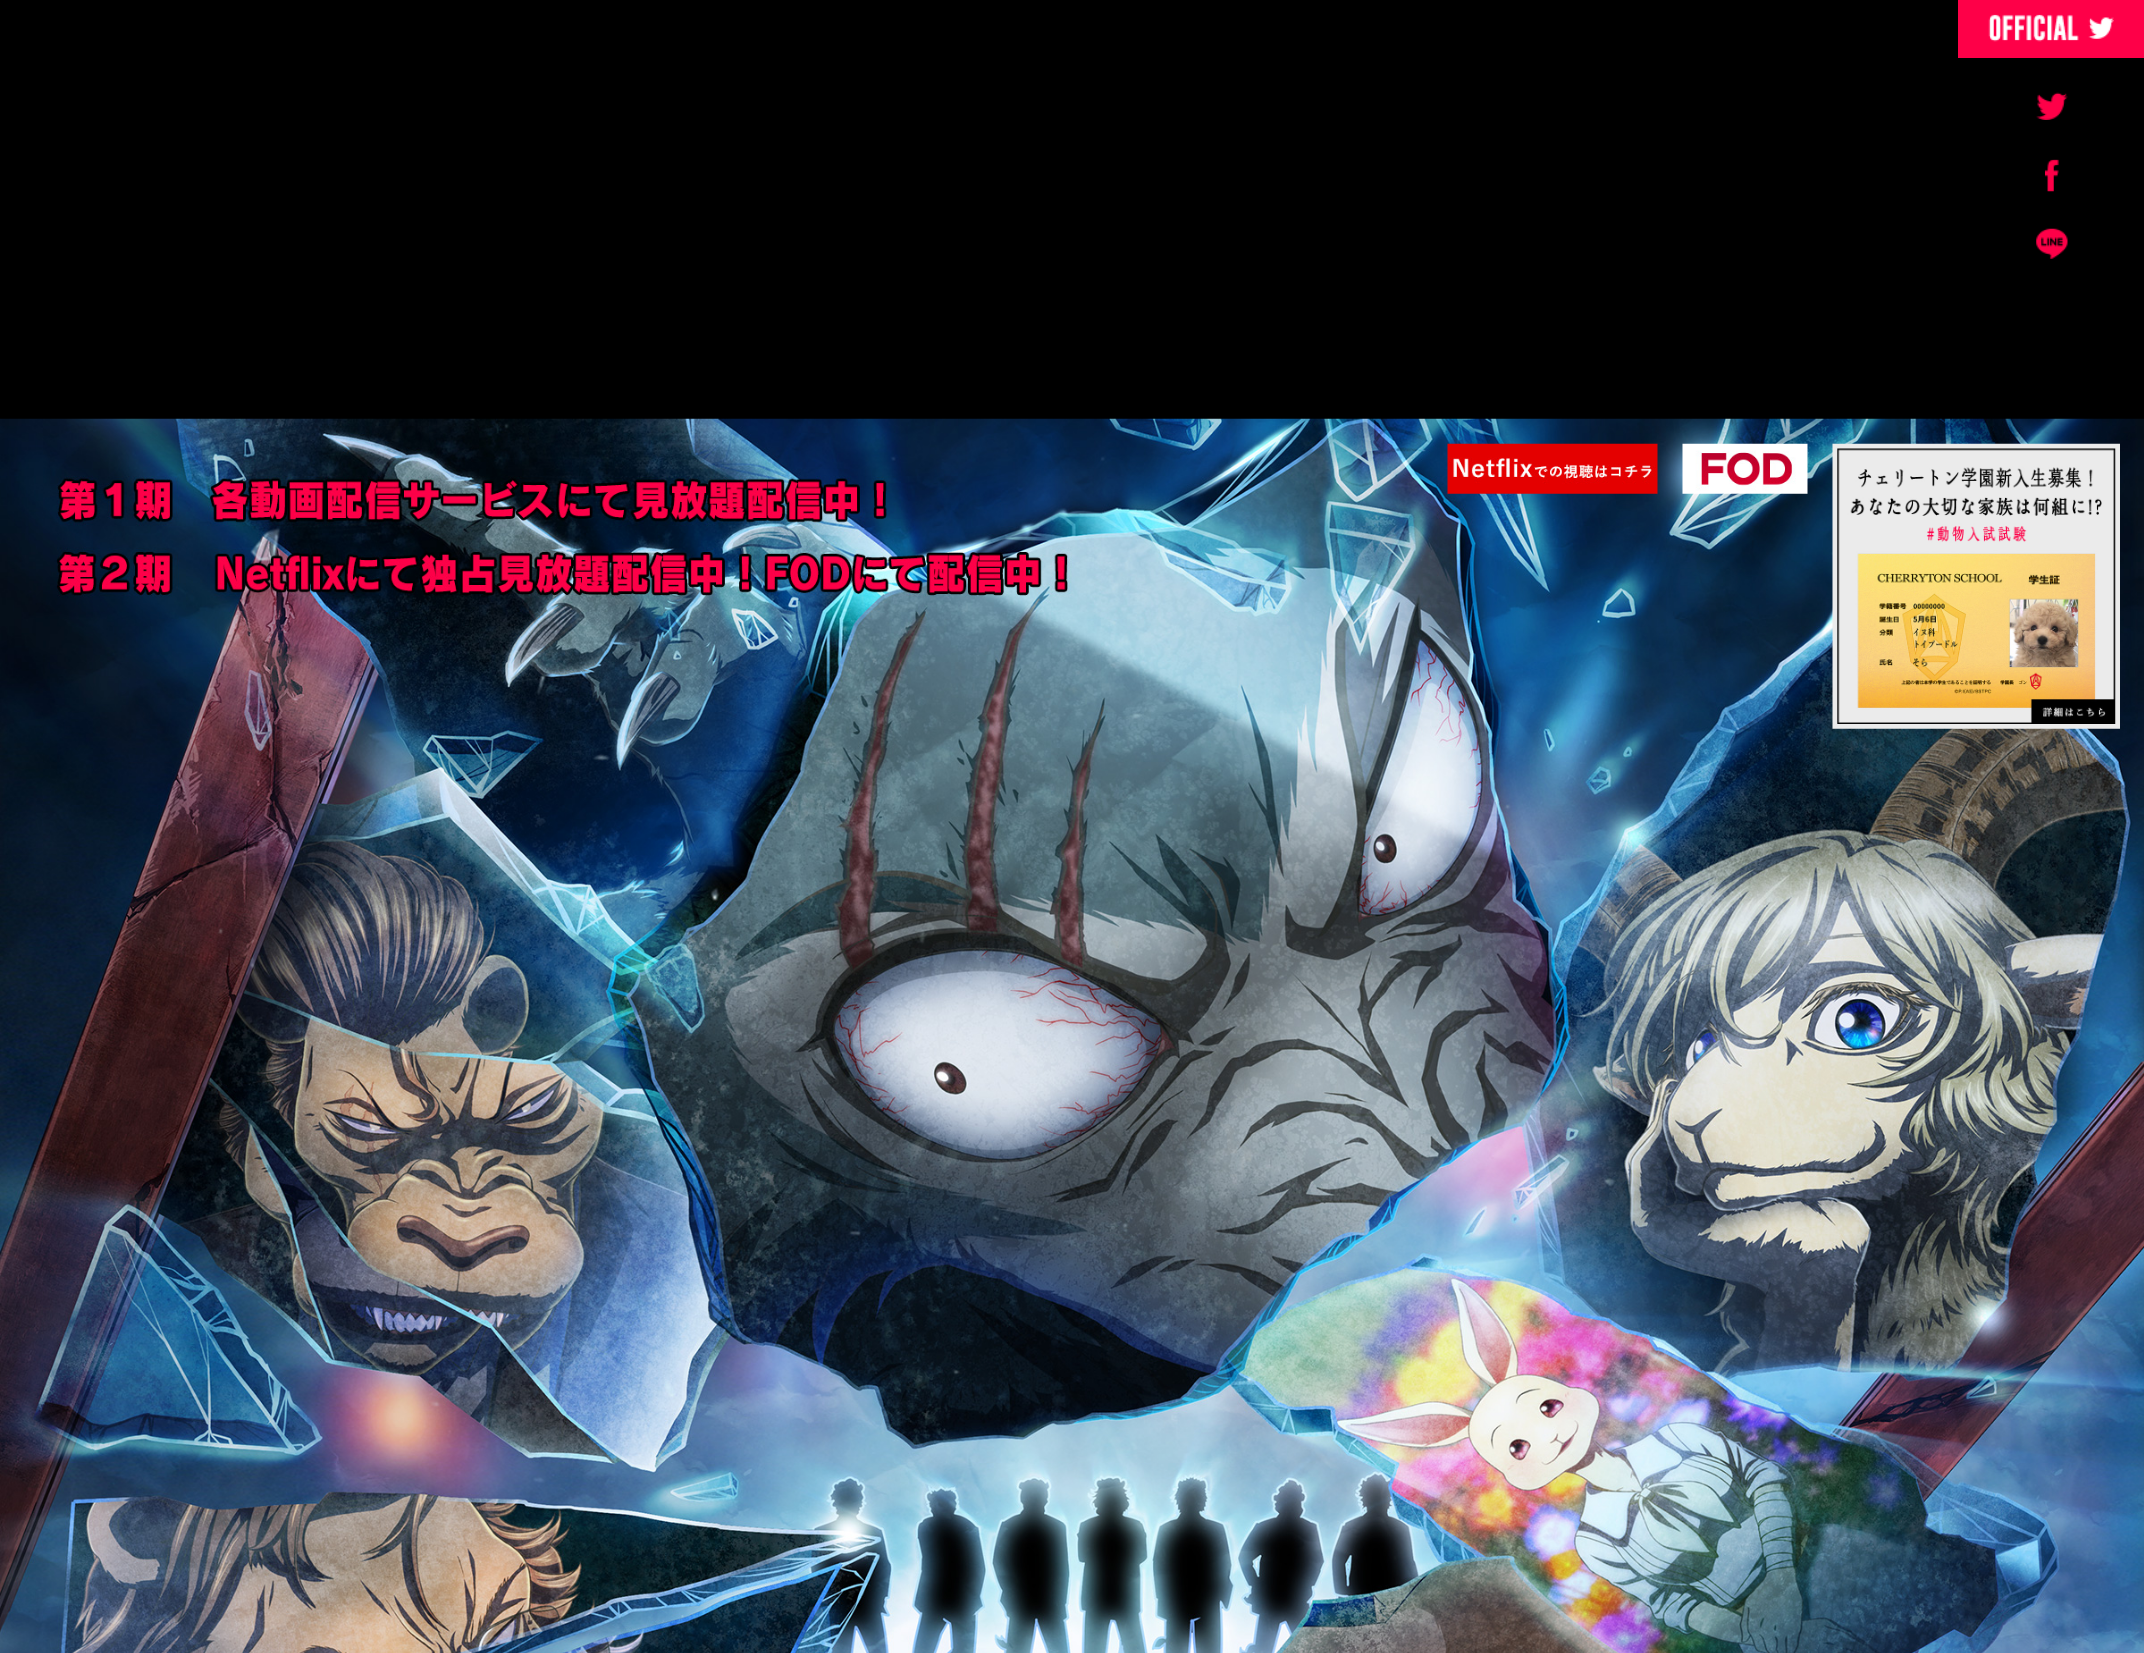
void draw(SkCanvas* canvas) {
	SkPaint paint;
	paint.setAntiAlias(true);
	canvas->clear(0xff000000);
	paint.setColor(0xfffe0048);
	canvas->drawRect(SkRect::MakeXYWH(1958, 0, 186, 58), paint);
	canvas->drawImageRect(SkImages::DeferredFromEncodedData(SkData::MakeFromFileName("img1.png")), SkRect::MakeXYWH(1988, 14, 126, 28), SkSamplingOptions());
	canvas->drawImageRect(SkImages::DeferredFromEncodedData(SkData::MakeFromFileName("img2.png")), SkRect::MakeXYWH(2036, 92, 32, 28), SkSamplingOptions());
	canvas->drawImageRect(SkImages::DeferredFromEncodedData(SkData::MakeFromFileName("img3.png")), SkRect::MakeXYWH(2045, 159, 14, 33), SkSamplingOptions());
	canvas->drawImageRect(SkImages::DeferredFromEncodedData(SkData::MakeFromFileName("img4.png")), SkRect::MakeXYWH(2036, 228, 32, 31), SkSamplingOptions());
	canvas->drawImageRect(SkImages::DeferredFromEncodedData(SkData::MakeFromFileName("img5.png")), SkRect::MakeXYWH(0, 418, 2144, 1235), SkSamplingOptions());
	canvas->drawImageRect(SkImages::DeferredFromEncodedData(SkData::MakeFromFileName("img6.png")), SkRect::MakeXYWH(1447, 443, 211, 51), SkSamplingOptions());
	canvas->drawImageRect(SkImages::DeferredFromEncodedData(SkData::MakeFromFileName("img7.png")), SkRect::MakeXYWH(1682, 443, 126, 51), SkSamplingOptions());
	canvas->drawImageRect(SkImages::DeferredFromEncodedData(SkData::MakeFromFileName("img8.png")), SkRect::MakeXYWH(1832, 443, 288, 286), SkSamplingOptions());
}
